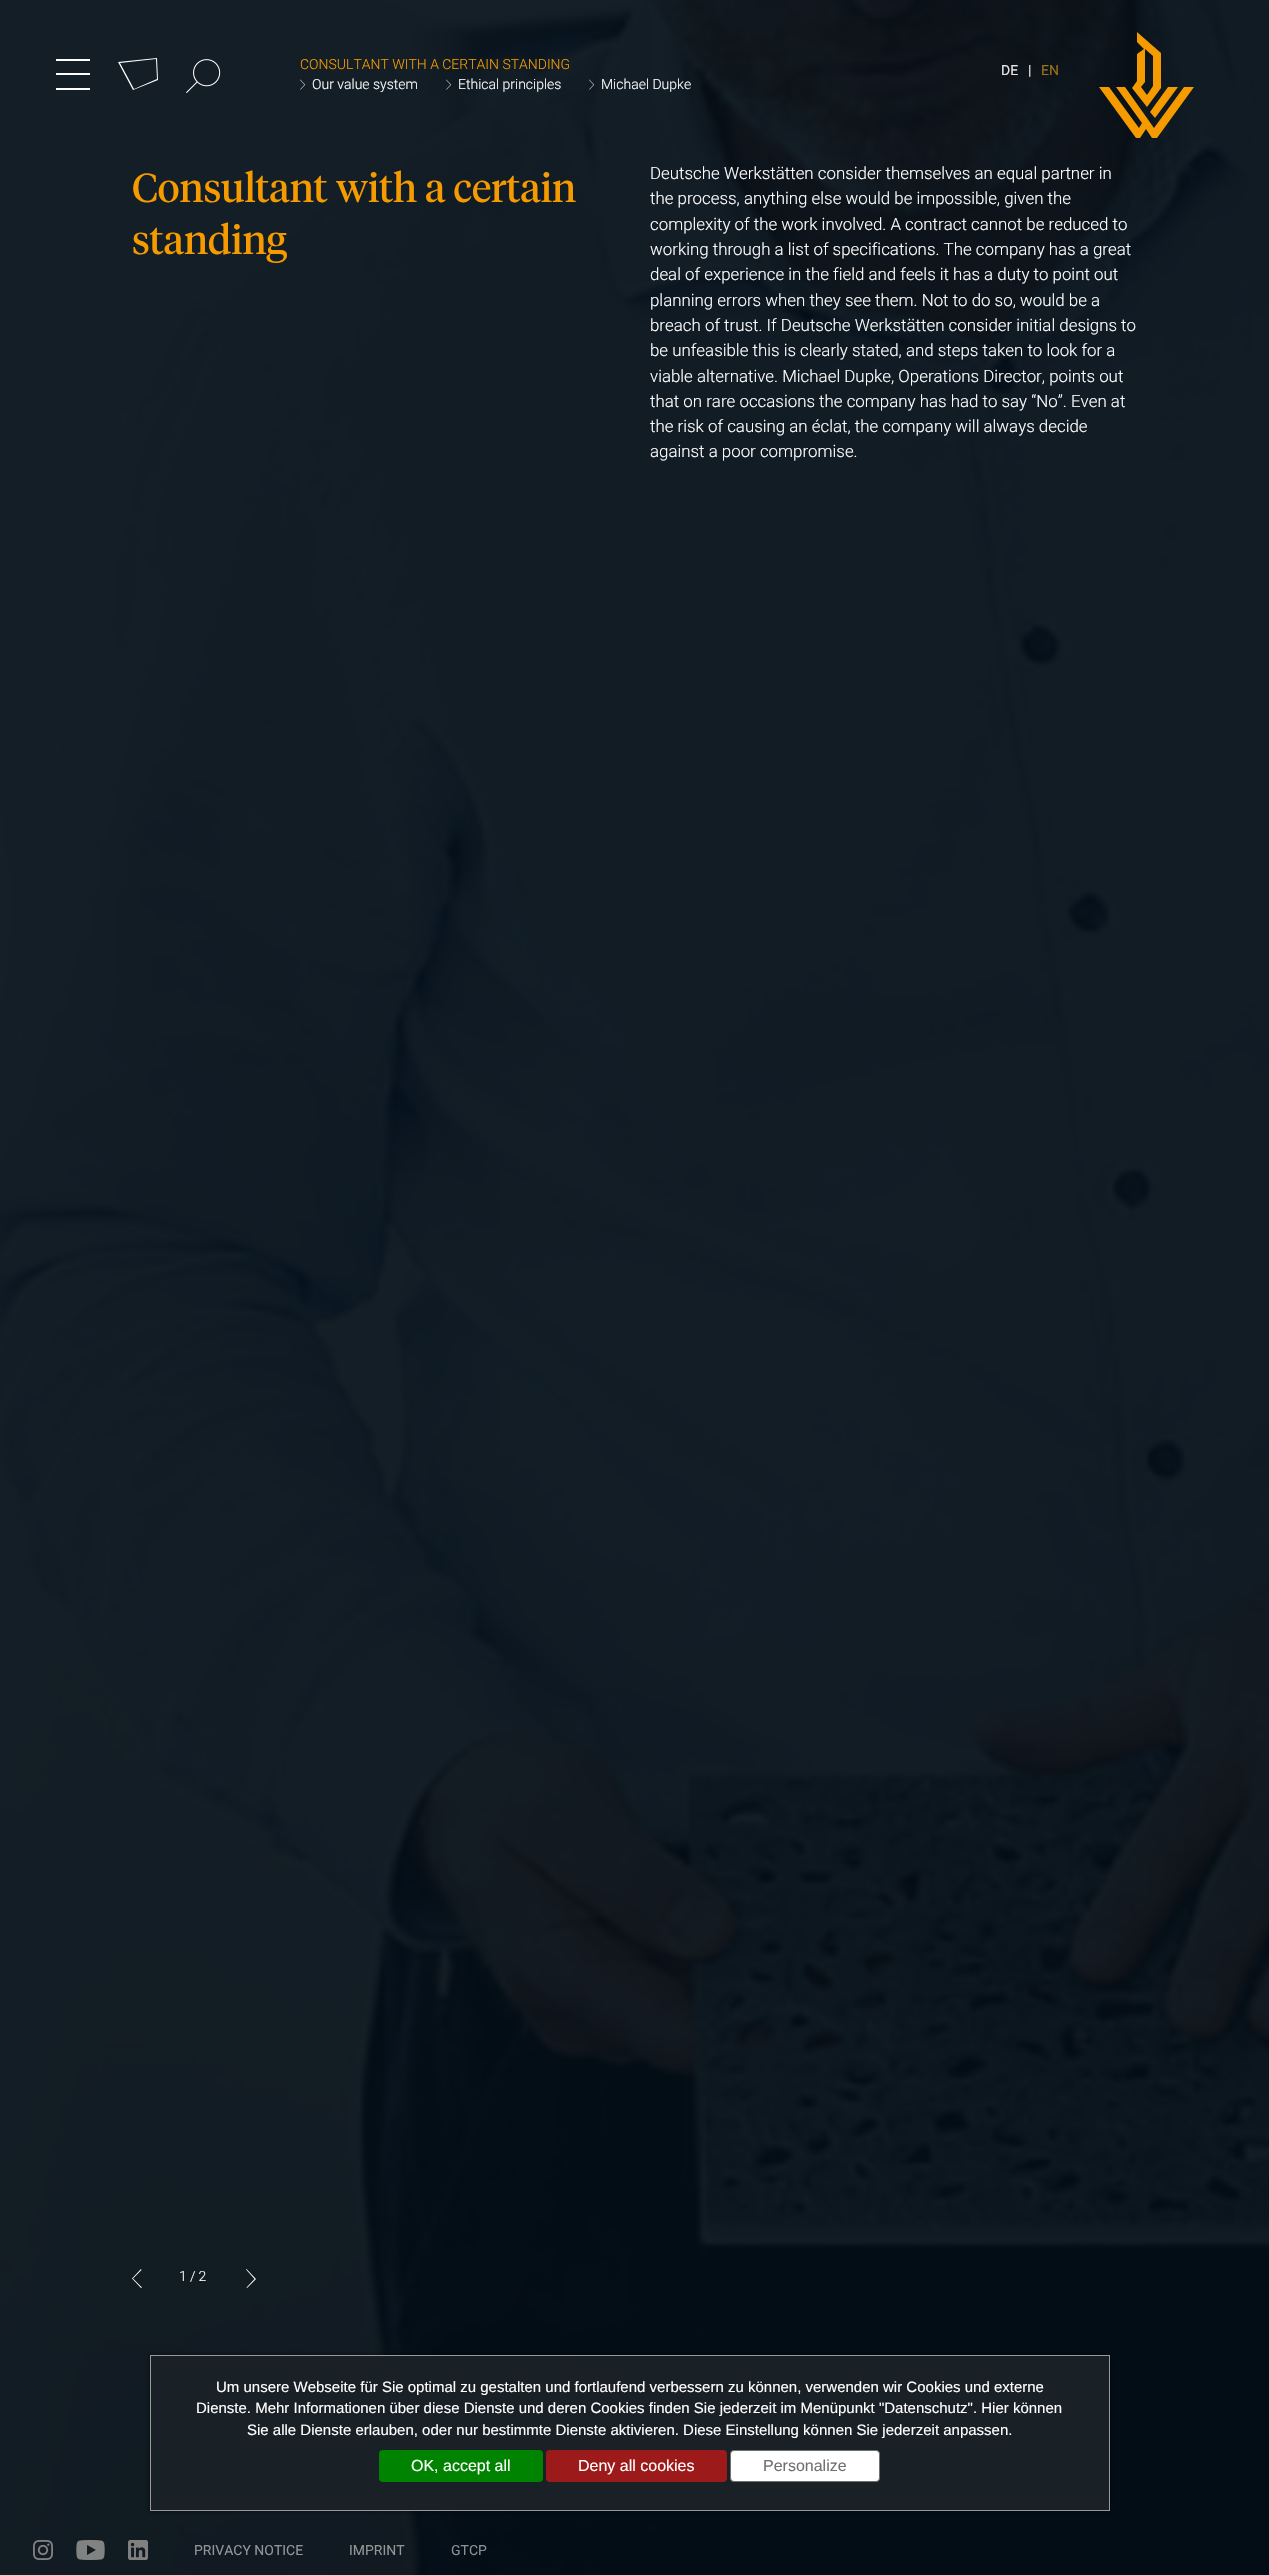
void draw(SkCanvas* canvas) {
	SkPaint paint;
	paint.setAntiAlias(true);
	auto spacedText = [&](const char* s, float x, float y, const SkFont& font, const SkPaint& ink, float letter, float word) {
		std::vector<SkGlyphID> glyphs(font.countText(s, strlen(s), SkTextEncoding::kUTF8));
		std::vector<float> xs(glyphs.size());
		font.textToGlyphs(s, strlen(s), SkTextEncoding::kUTF8, glyphs);
		font.getXPos(glyphs, xs, x);
		float extra = 0;
		for (size_t i = 0; i < glyphs.size(); i++) {
			xs[i] += extra;
			extra += letter + word * (glyphs[i] == font.unicharToGlyph(' '));
		}
		canvas->drawTextBlob(SkTextBlob::MakeFromPosHGlyphs(glyphs, xs, y, font), 0, 0, ink);
	};
	auto svgPath = [&](const char* data, bool evenOdd = false) {
		SkPath result = *SkParsePath::FromSVGString(data);
		if (evenOdd) result.setFillType(SkPathFillType::kEvenOdd);
		return result;
	};
	canvas->clear(0xffffffff);
	canvas->drawImageRect(SkImages::DeferredFromEncodedData(SkData::MakeFromFileName("img5.png")), SkRect::MakeXYWH(0, 0, 1269, 2575), SkSamplingOptions());
	paint.setColor(0xffffffff);
	canvas->drawRect(SkRect::MakeXYWH(56, 59, 34, 2), paint);
	canvas->drawRect(SkRect::MakeXYWH(56, 73, 34, 2), paint);
	canvas->drawRect(SkRect::MakeXYWH(56, 88, 34, 2), paint);
	canvas->drawPath(svgPath("M120 63L134 89L157 79L156 59ZM118 62L157 58L158 80L133 90Z"), paint);
	canvas->drawImageRect(SkImages::DeferredFromEncodedData(SkData::MakeFromFileName("img1.png")), SkRect::MakeXYWH(186, 59, 35, 34), SkSamplingOptions());
	SkFont f1(fontMgr->matchFamilyStyle("Roboto", SkFontStyle(300, SkFontStyle::kNormal_Width, SkFontStyle::kUpright_Slant)), 14);
	f1.setSubpixel(true);
	paint.setColor(0xfff59b00);
	canvas->drawString("CONSULTANT WITH A CERTAIN STANDING", 300, 69, f1, paint);
	canvas->drawImageRect(SkImages::DeferredFromEncodedData(SkData::MakeFromFileName("img2.png")), SkRect::MakeXYWH(300, 79, 6, 11), SkSamplingOptions());
	paint.setColor(0xffffffff);
	canvas->drawString("Our value system", 312, 89, f1, paint);
	canvas->drawImageRect(SkImages::DeferredFromEncodedData(SkData::MakeFromFileName("img3.png")), SkRect::MakeXYWH(446, 79, 6, 11), SkSamplingOptions());
	canvas->drawString("Ethical principles", 458, 89, f1, paint);
	canvas->drawImageRect(SkImages::DeferredFromEncodedData(SkData::MakeFromFileName("img4.png")), SkRect::MakeXYWH(589, 79, 6, 11), SkSamplingOptions());
	canvas->drawString("Michael Dupke", 601, 89, f1, paint);
	SkFont f2(fontMgr->matchFamilyStyle("Roboto", SkFontStyle::Normal()), 14);
	f2.setSubpixel(true);
	paint.setColor(0xffe7e7e8);
	canvas->drawString("DE", 1001, 75, f2, paint);
	canvas->drawString("|", 1028, 75, f2, paint);
	paint.setColor(0xff997314);
	canvas->drawString("EN", 1041, 75, f2, paint);
	paint.setColor(0xfff59b00);
	canvas->drawPath(svgPath("M1150 112L1168 87H1178L1155 118ZM1184 87L1154 128L1125 87H1116L1142 123L1139 128L1109 87H1099L1136 138H1140L1146 129L1152 138H1157L1194 87ZM1147 95L1153 86V56L1145 49V82L1141 87ZM1161 53V88L1147 107L1132 88L1137 81V54L1144 49L1137 42V32Z"), paint);
	SkFont f3(fontMgr->matchFamilyStyle("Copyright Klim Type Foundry", SkFontStyle::Normal()), 40.25);
	f3.setSubpixel(true);
	canvas->drawString("Consultant with a certain", 132, 202, f3, paint);
	canvas->drawString("standing", 132, 254, f3, paint);
	SkFont f4(fontMgr->matchFamilyStyle("Roboto", SkFontStyle(300, SkFontStyle::kNormal_Width, SkFontStyle::kUpright_Slant)), 16.9);
	f4.setSubpixel(true);
	paint.setColor(0xffffffff);
	canvas->drawString("Deutsche Werkstätten consider themselves an equal partner in", 650, 179, f4, paint);
	canvas->drawString("the process, anything else would be impossible, given the", 650, 204, f4, paint);
	canvas->drawString("complexity of the work involved. A contract cannot be reduced to", 650, 230, f4, paint);
	canvas->drawString("working through a list of specifications. The company has a great", 650, 255, f4, paint);
	canvas->drawString("deal of experience in the field and feels it has a duty to point out", 650, 280, f4, paint);
	canvas->drawString("planning errors when they see them. Not to do so, would be a", 650, 306, f4, paint);
	canvas->drawString("breach of trust. If Deutsche Werkstätten consider initial designs to", 650, 331, f4, paint);
	canvas->drawString("be unfeasible this is clearly stated, and steps taken to look for a", 650, 356, f4, paint);
	canvas->drawString("viable alternative. Michael Dupke, Operations Director, points out", 650, 382, f4, paint);
	canvas->drawString("that on rare occasions the company has had to say “No”. Even at", 650, 407, f4, paint);
	canvas->drawString("the risk of causing an éclat, the company will always decide", 650, 432, f4, paint);
	canvas->drawString("against a poor compromise.", 650, 457, f4, paint);
	canvas->drawPath(svgPath("M141 2288L132 2278.5L141 2269L141.5 2270L133 2278.5L142 2287.5Z"), paint);
	canvas->drawString("1", 179, 2281, f1, paint);
	spacedText("/2", 190, 2281, f1, paint, 3, 0);
	canvas->drawPath(svgPath("M247 2288L246.5 2287.5L254.5 2279L246 2269.5L246.5 2269L256 2279Z"), paint);
	paint.setColor(0x80000000);
	paint.setMaskFilter(SkMaskFilter::MakeBlur(kNormal_SkBlurStyle, 2.5));
	canvas->drawRect(SkRect::MakeXYWH(150, 2355, 960, 156), paint);
	paint.setMaskFilter(nullptr);
	paint.setColor(0xff192026);
	canvas->drawRect(SkRect::MakeXYWH(150.5, 2355.5, 959, 155), paint);
	paint.setStroke(true);
	paint.setStrokeWidth(1);
	paint.setColor(0xff999999);
	canvas->drawRect(SkRect::MakeXYWH(150.5, 2355.5, 959, 155), paint);
	SkFont f5(fontMgr->matchFamilyStyle("Liberation Sans", SkFontStyle::Normal()), 15);
	f5.setSubpixel(true);
	paint.setStroke(false);
	paint.setColor(0xffffffff);
	canvas->drawString("Um unsere Webseite für Sie optimal zu gestalten und fortlaufend verbessern zu können, verwenden wir Cookies und externe", 216, 2392, f5, paint);
	canvas->drawString("Dienste. Mehr Informationen über diese Dienste und deren Cookies finden Sie jederzeit im Menüpunkt \"Datenschutz\". Hier können", 196, 2413, f5, paint);
	canvas->drawString("Sie alle Dienste erlauben, oder nur bestimmte Dienste aktivieren. Diese Einstellung können Sie jederzeit anpassen.", 247, 2435, f5, paint);
	paint.setColor(0xff008300);
	canvas->drawRoundRect(SkRect::MakeXYWH(379, 2450, 164, 32), 4, 4, paint);
	SkFont f6(fontMgr->matchFamilyStyle("Liberation Sans", SkFontStyle::Normal()), 16);
	f6.setSubpixel(true);
	paint.setColor(0xffffffff);
	canvas->drawString("OK, accept all", 411, 2471, f6, paint);
	paint.setColor(0xff9c1a1a);
	canvas->drawRoundRect(SkRect::MakeXYWH(546, 2450, 181, 32), 4, 4, paint);
	paint.setColor(0xffffffff);
	canvas->drawString("Deny all cookies", 578, 2471, f6, paint);
	canvas->drawRoundRect(SkRect::MakeXYWH(730.5, 2450.5, 149, 31), 3.5, 3.5, paint);
	paint.setStroke(true);
	paint.setColor(0xff707070);
	canvas->drawRoundRect(SkRect::MakeXYWH(730.5, 2450.5, 149, 31), 3.5, 3.5, paint);
	paint.setStroke(false);
	canvas->drawString("Personalize", 763, 2471, f6, paint);
	canvas->drawImageRect(SkImages::DeferredFromEncodedData(SkData::MakeFromFileName("img6.png")), SkRect::MakeXYWH(33, 2540, 20, 20), SkSamplingOptions());
	canvas->drawImageRect(SkImages::DeferredFromEncodedData(SkData::MakeFromFileName("img7.png")), SkRect::MakeXYWH(76, 2540, 29, 20), SkSamplingOptions());
	canvas->drawImageRect(SkImages::DeferredFromEncodedData(SkData::MakeFromFileName("img8.png")), SkRect::MakeXYWH(128, 2540, 20, 20), SkSamplingOptions());
	paint.setColor(0xff919699);
	canvas->drawString("PRIVACY NOTICE", 194, 2555, f2, paint);
	canvas->drawString("IMPRINT", 349, 2555, f2, paint);
	paint.setColor(0xff8b9094);
	canvas->drawString("GTCP", 451, 2555, f2, paint);
}
